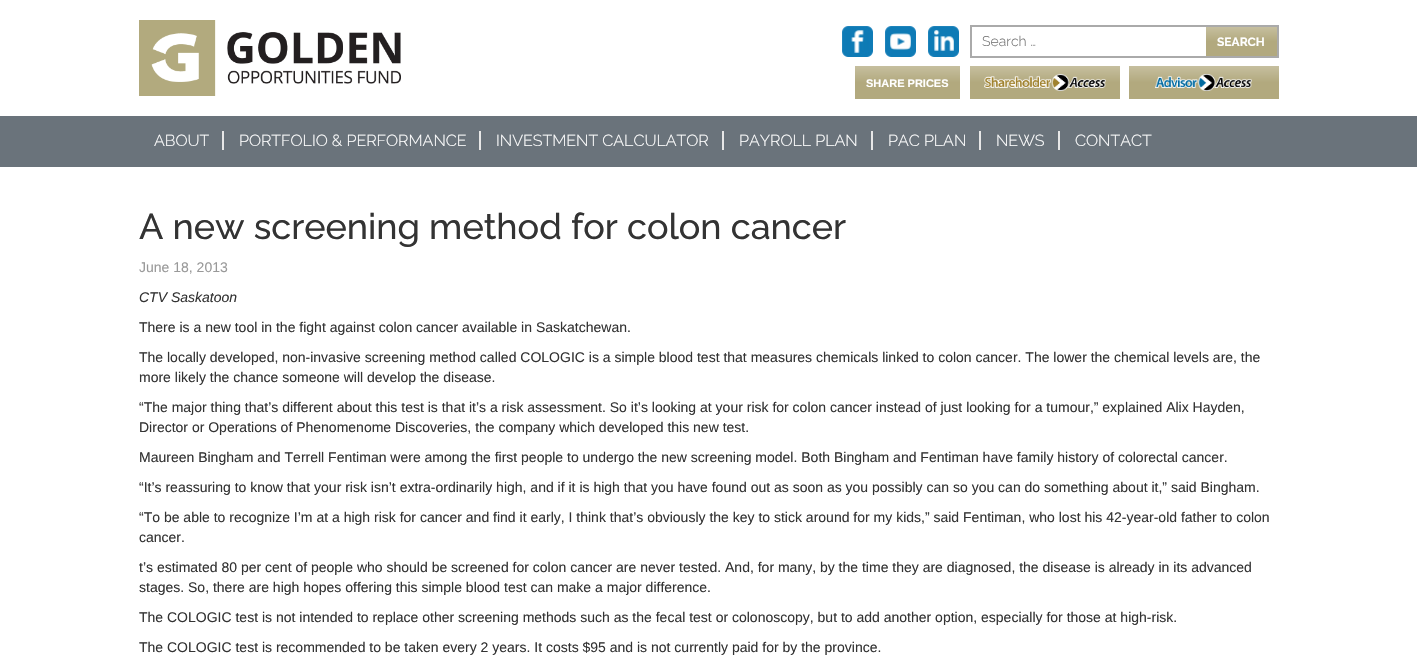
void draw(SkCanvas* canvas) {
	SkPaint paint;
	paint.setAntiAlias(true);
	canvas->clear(0xffffffff);
	canvas->drawImageRect(SkImages::DeferredFromEncodedData(SkData::MakeFromFileName("img1.png")), SkRect::MakeXYWH(139, 20, 262, 76), SkSamplingOptions());
	canvas->drawImageRect(SkImages::DeferredFromEncodedData(SkData::MakeFromFileName("img2.png")), SkRect::MakeXYWH(842, 26, 31, 31), SkSamplingOptions());
	canvas->drawImageRect(SkImages::DeferredFromEncodedData(SkData::MakeFromFileName("img3.png")), SkRect::MakeXYWH(885, 26, 31, 31), SkSamplingOptions());
	canvas->drawImageRect(SkImages::DeferredFromEncodedData(SkData::MakeFromFileName("img4.png")), SkRect::MakeXYWH(928, 26, 31, 31), SkSamplingOptions());
	paint.setStroke(true);
	paint.setStrokeWidth(2);
	paint.setColor(0xffaaaaaa);
	canvas->drawRect(SkRect::MakeXYWH(971, 26, 307, 31), paint);
	SkFont f1(fontMgr->matchFamilyStyle("Raleway", SkFontStyle(300, SkFontStyle::kNormal_Width, SkFontStyle::kUpright_Slant)), 14);
	f1.setSubpixel(true);
	paint.setStroke(false);
	paint.setColor(0xff757575);
	canvas->drawString("Search …", 982, 46, f1, paint);
	{
		const SkColor colors[] = {0xffc6bf9f, 0xffb2a97e, 0xffb2a97e};
		const float stops[] = {0, 0.5, 1};
		const SkPoint ends[] = {{1242, 27}, {1242, 56}};
		paint.setShader(SkGradientShader::MakeLinear(ends, colors, stops, 3, SkTileMode::kClamp));
		paint.setAlpha(255);
	}
	canvas->drawRect(SkRect::MakeXYWH(1206, 27, 71, 29), paint);
	SkFont f2(fontMgr->matchFamilyStyle("Raleway", SkFontStyle::Bold()), 12);
	f2.setSubpixel(true);
	paint.setShader(nullptr);
	paint.setColor(0xffffffff);
	canvas->drawString("SEARCH", 1217, 46, f2, paint);
	{
		const SkColor colors[] = {0xffc6bf9f, 0xffb2a97e, 0xffb2a97e};
		const float stops[] = {0, 0.5, 1};
		const SkPoint ends[] = {{1045, 66}, {1045, 99}};
		paint.setShader(SkGradientShader::MakeLinear(ends, colors, stops, 3, SkTileMode::kClamp));
		paint.setAlpha(255);
	}
	canvas->drawRect(SkRect::MakeXYWH(970, 66, 150, 33), paint);
	canvas->drawImageRect(SkImages::DeferredFromEncodedData(SkData::MakeFromFileName("img5.png")), SkRect::MakeXYWH(984, 74, 122, 17), SkSamplingOptions());
	{
		const SkColor colors[] = {0xffc6bf9f, 0xffb2a97e, 0xffb2a97e};
		const float stops[] = {0, 0.5, 1};
		const SkPoint ends[] = {{1204, 66}, {1204, 99}};
		paint.setShader(SkGradientShader::MakeLinear(ends, colors, stops, 3, SkTileMode::kClamp));
		paint.setAlpha(255);
	}
	canvas->drawRect(SkRect::MakeXYWH(1129, 66, 150, 33), paint);
	canvas->drawImageRect(SkImages::DeferredFromEncodedData(SkData::MakeFromFileName("img6.png")), SkRect::MakeXYWH(1155, 74, 97, 17), SkSamplingOptions());
	{
		const SkColor colors[] = {0xffc6bf9f, 0xffb2a97e, 0xffb2a97e};
		const float stops[] = {0, 0.5, 1};
		const SkPoint ends[] = {{908, 66}, {908, 99}};
		paint.setShader(SkGradientShader::MakeLinear(ends, colors, stops, 3, SkTileMode::kClamp));
		paint.setAlpha(255);
	}
	canvas->drawRect(SkRect::MakeXYWH(855, 66, 105, 33), paint);
	SkFont f3(fontMgr->matchFamilyStyle("Liberation Sans", SkFontStyle::Bold()), 11);
	f3.setSubpixel(true);
	paint.setShader(nullptr);
	paint.setColor(0xffffffff);
	canvas->drawString("SHARE PRICES", 866, 87, f3, paint);
	paint.setColor(0xff6a737b);
	canvas->drawRect(SkRect::MakeXYWH(0, 116, 1417, 51), paint);
	SkFont f4(fontMgr->matchFamilyStyle("Raleway", SkFontStyle(300, SkFontStyle::kNormal_Width, SkFontStyle::kUpright_Slant)), 16);
	f4.setSubpixel(true);
	paint.setColor(0xffffffff);
	canvas->drawString("ABOUT", 154, 146, f4, paint);
	paint.setColor(0xffe7e7e7);
	canvas->drawRect(SkRect::MakeXYWH(222, 131, 2, 19), paint);
	paint.setColor(0xffffffff);
	canvas->drawString("PORTFOLIO & PERFORMANCE", 239, 146, f4, paint);
	paint.setColor(0xffe7e7e7);
	canvas->drawRect(SkRect::MakeXYWH(479, 131, 2, 19), paint);
	paint.setColor(0xffffffff);
	canvas->drawString("INVESTMENT CALCULATOR", 496, 146, f4, paint);
	paint.setColor(0xffe7e7e7);
	canvas->drawRect(SkRect::MakeXYWH(722, 131, 2, 19), paint);
	paint.setColor(0xffffffff);
	canvas->drawString("PAYROLL PLAN", 739, 146, f4, paint);
	paint.setColor(0xffe7e7e7);
	canvas->drawRect(SkRect::MakeXYWH(871, 131, 2, 19), paint);
	paint.setColor(0xffffffff);
	canvas->drawString("PAC PLAN", 888, 146, f4, paint);
	paint.setColor(0xffe7e7e7);
	canvas->drawRect(SkRect::MakeXYWH(979, 131, 2, 19), paint);
	paint.setColor(0xffffffff);
	canvas->drawString("NEWS", 996, 146, f4, paint);
	paint.setColor(0xffe7e7e7);
	canvas->drawRect(SkRect::MakeXYWH(1058, 131, 2, 19), paint);
	paint.setColor(0xffffffff);
	canvas->drawString("CONTACT", 1075, 146, f4, paint);
	SkFont f5(fontMgr->matchFamilyStyle("Raleway", SkFontStyle(500, SkFontStyle::kNormal_Width, SkFontStyle::kUpright_Slant)), 36);
	f5.setSubpixel(true);
	paint.setColor(0xff333333);
	canvas->drawString("A new screening method for colon cancer", 139, 239, f5, paint);
	SkFont f6(fontMgr->matchFamilyStyle("Liberation Sans", SkFontStyle::Normal()), 14);
	f6.setSubpixel(true);
	paint.setColor(0xff999999);
	canvas->drawString("June 18, 2013", 139, 272, f6, paint);
	SkFont f7(fontMgr->matchFamilyStyle("Liberation Sans", SkFontStyle::Italic()), 14);
	f7.setSubpixel(true);
	paint.setColor(0xff333333);
	canvas->drawString("CTV Saskatoon", 139, 302, f7, paint);
	canvas->drawString("There is a new tool in the fight against colon cancer available in Saskatchewan.", 139, 332, f6, paint);
	canvas->drawString("The locally developed, non-invasive screening method called COLOGIC is a simple blood test that measures chemicals linked to colon cancer. The lower the chemical levels are, the", 139, 362, f6, paint);
	canvas->drawString("more likely the chance someone will develop the disease.", 139, 382, f6, paint);
	canvas->drawString("“The major thing that’s different about this test is that it’s a risk assessment. So it’s looking at your risk for colon cancer instead of just looking for a tumour,” explained Alix Hayden,", 139, 412, f6, paint);
	canvas->drawString("Director or Operations of Phenomenome Discoveries, the company which developed this new test.", 139, 432, f6, paint);
	canvas->drawString("Maureen Bingham and Terrell Fentiman were among the first people to undergo the new screening model. Both Bingham and Fentiman have family history of colorectal cancer.", 139, 462, f6, paint);
	canvas->drawString("“It’s reassuring to know that your risk isn’t extra-ordinarily high, and if it is high that you have found out as soon as you possibly can so you can do something about it,” said Bingham.", 139, 492, f6, paint);
	canvas->drawString("“To be able to recognize I’m at a high risk for cancer and find it early, I think that’s obviously the key to stick around for my kids,” said Fentiman, who lost his 42-year-old father to colon", 139, 522, f6, paint);
	canvas->drawString("cancer.", 139, 542, f6, paint);
	canvas->drawString("t’s estimated 80 per cent of people who should be screened for colon cancer are never tested. And, for many, by the time they are diagnosed, the disease is already in its advanced", 139, 572, f6, paint);
	canvas->drawString("stages. So, there are high hopes offering this simple blood test can make a major difference.", 139, 592, f6, paint);
	canvas->drawString("The COLOGIC test is not intended to replace other screening methods such as the fecal test or colonoscopy, but to add another option, especially for those at high-risk.", 139, 622, f6, paint);
	canvas->drawString("The COLOGIC test is recommended to be taken every 2 years. It costs $95 and is not currently paid for by the province.", 139, 652, f6, paint);
}
